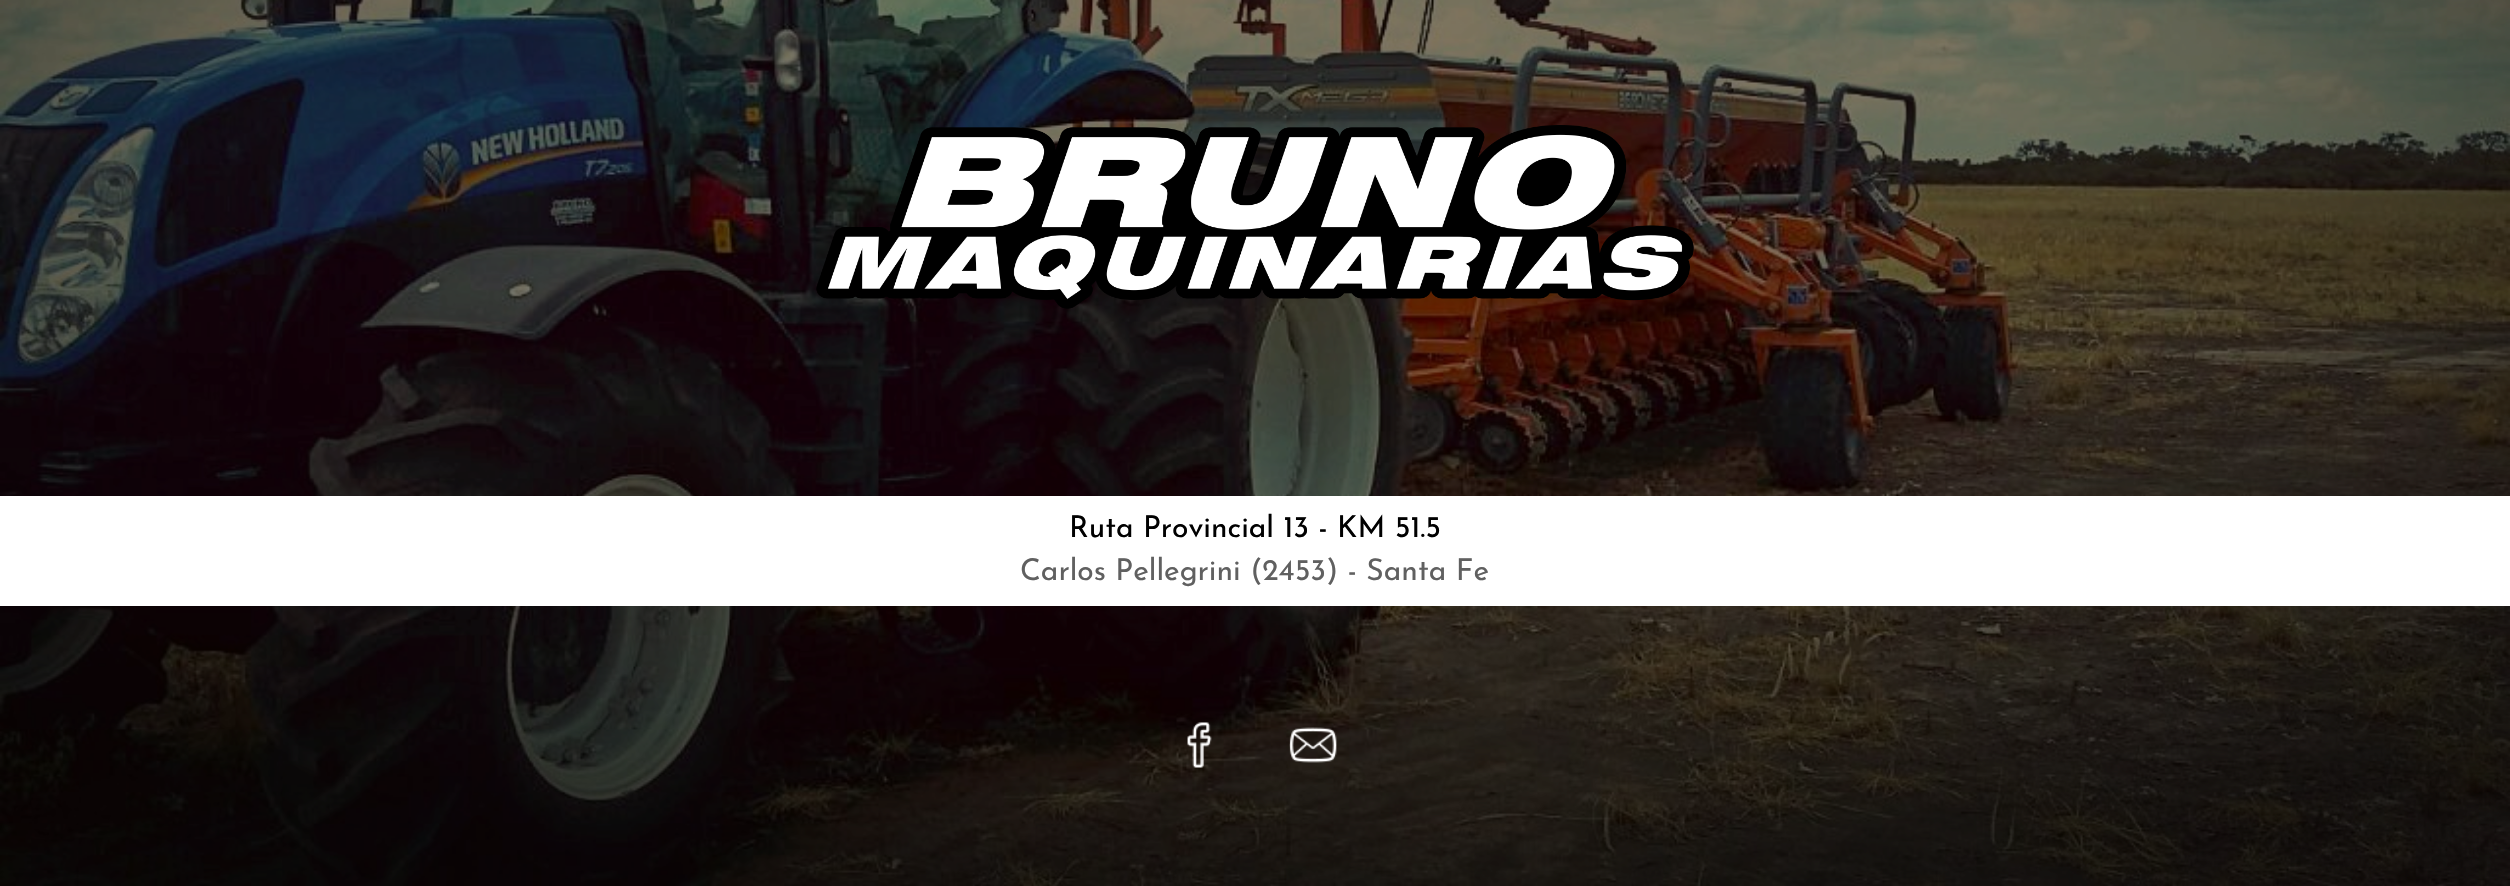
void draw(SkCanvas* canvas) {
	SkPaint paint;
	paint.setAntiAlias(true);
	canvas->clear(0xffffffff);
	canvas->drawImageRect(SkImages::DeferredFromEncodedData(SkData::MakeFromFileName("img1.png")), SkRect::MakeXYWH(0, 0, 2510, 886), SkSamplingOptions());
	canvas->drawImageRect(SkImages::DeferredFromEncodedData(SkData::MakeFromFileName("img2.png")), SkRect::MakeXYWH(816, 125, 878, 184), SkSamplingOptions());
	paint.setColor(0xffffffff);
	canvas->drawRect(SkRect::MakeXYWH(0, 496, 2510, 110), paint);
	SkFont f1(fontMgr->matchFamilyStyle("Josefin Sans", SkFontStyle::Normal()), 30);
	f1.setSubpixel(true);
	paint.setColor(0xff000000);
	canvas->drawString("Ruta Provincial 13 - KM 51.5", 1069, 537, f1, paint);
	paint.setColor(0xff606060);
	canvas->drawString("Carlos Pellegrini (2453) - Santa Fe", 1020, 580, f1, paint);
	canvas->drawImageRect(SkImages::DeferredFromEncodedData(SkData::MakeFromFileName("img3.png")), SkRect::MakeXYWH(1187, 722, 25, 46), SkSamplingOptions());
	canvas->drawImageRect(SkImages::DeferredFromEncodedData(SkData::MakeFromFileName("img4.png")), SkRect::MakeXYWH(1289, 727, 48, 36), SkSamplingOptions());
}
